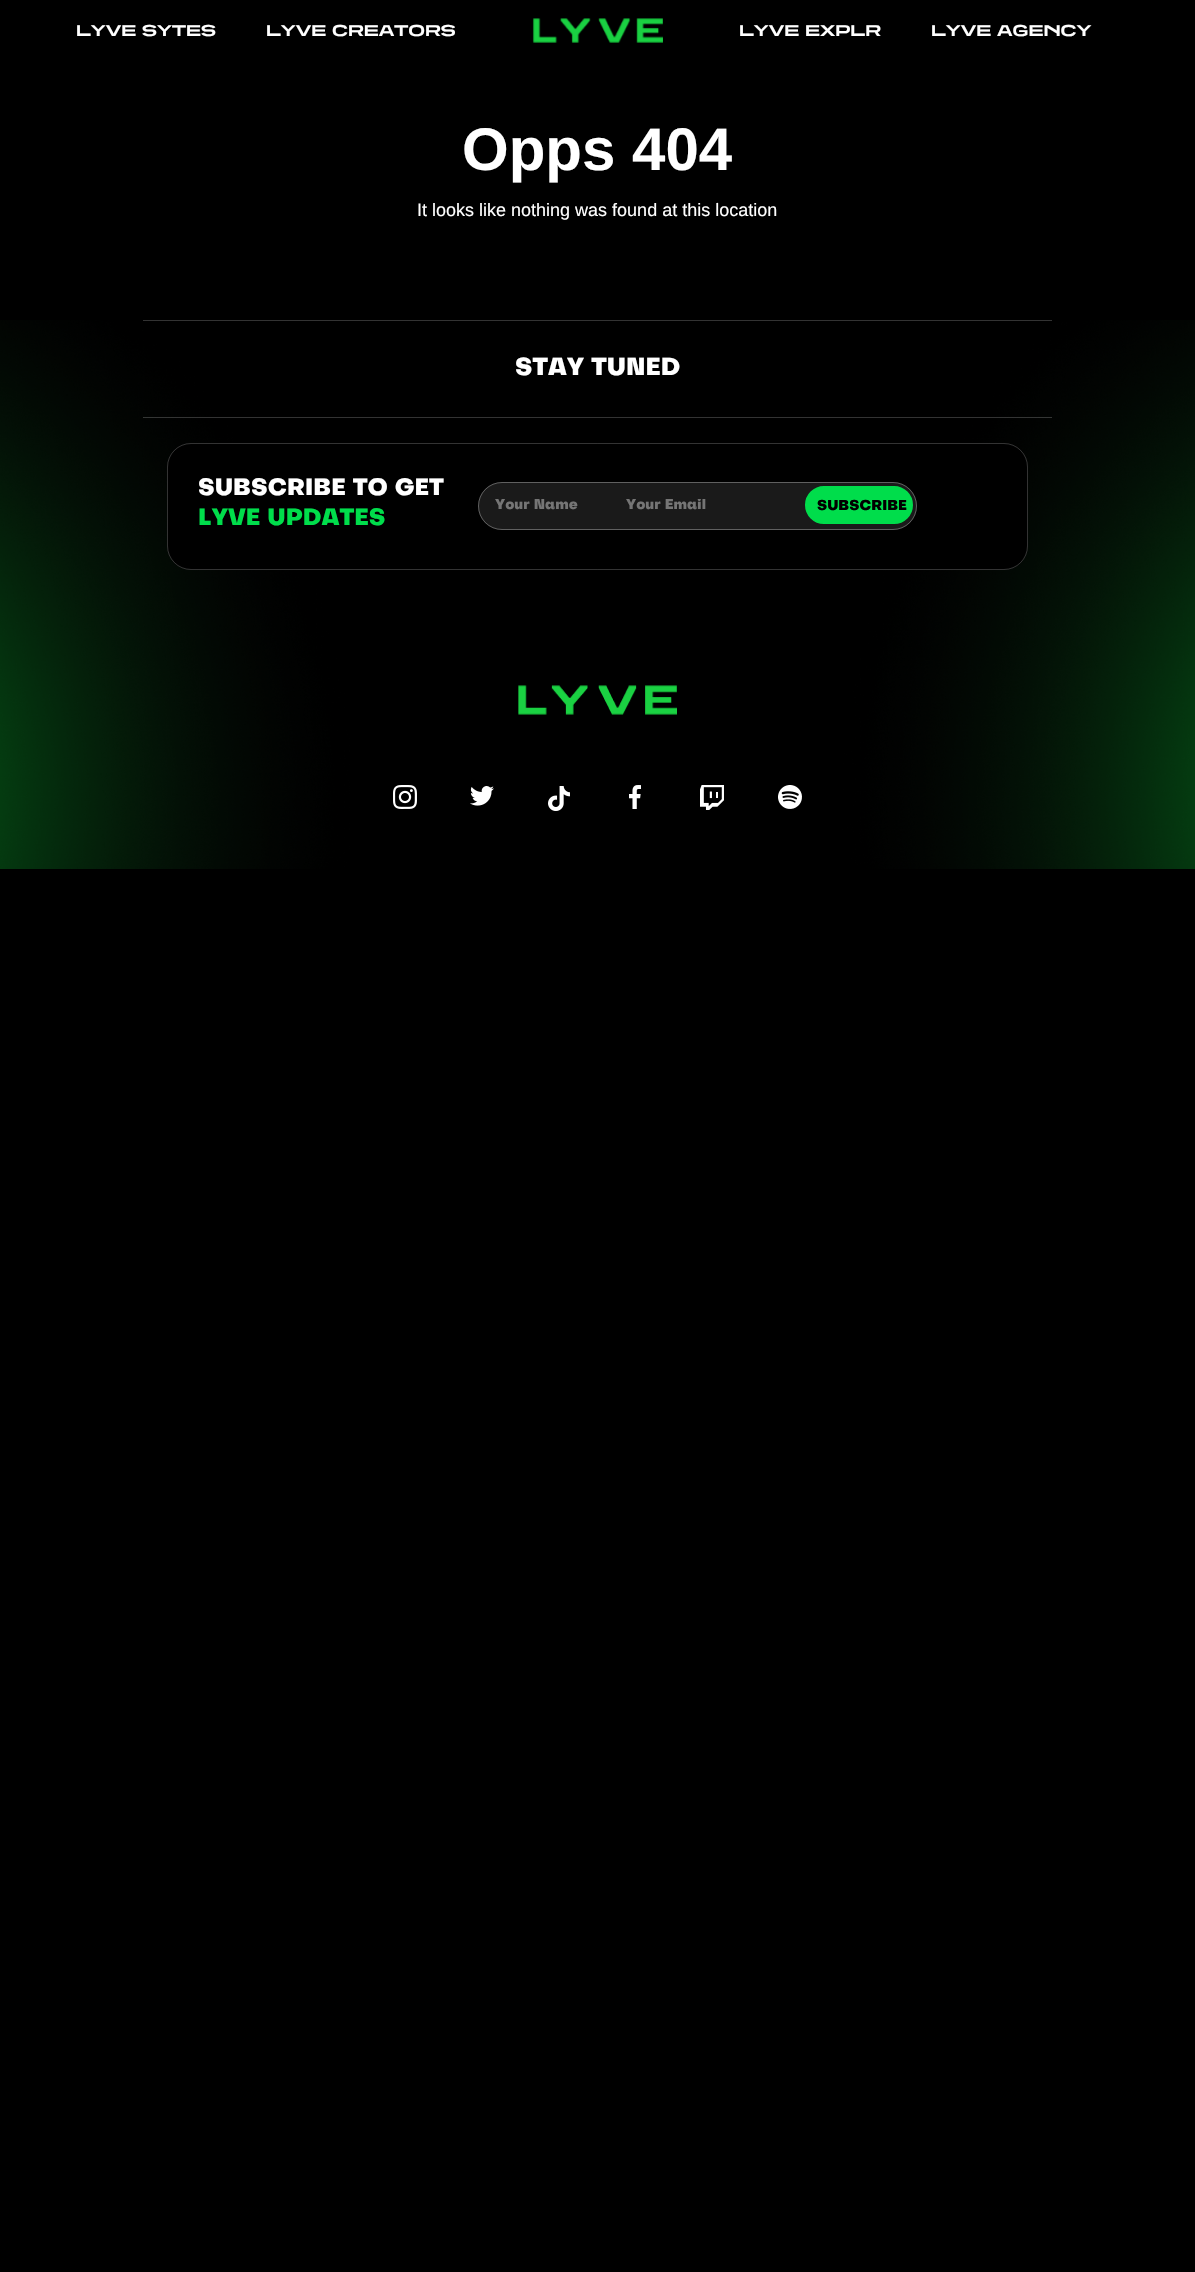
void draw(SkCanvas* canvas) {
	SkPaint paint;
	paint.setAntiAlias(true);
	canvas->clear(0xff000000);
	SkFont f1(fontMgr->matchFamilyStyle("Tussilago", SkFontStyle::Bold()), 16);
	f1.setSubpixel(true);
	paint.setColor(0xffffffff);
	canvas->drawString("LYVE SYTES", 76, 36, f1, paint);
	canvas->drawString("LYVE CREATORS", 266, 36, f1, paint);
	canvas->drawImageRect(SkImages::DeferredFromEncodedData(SkData::MakeFromFileName("img1.png")), SkRect::MakeXYWH(532, 18, 131, 25), SkSamplingOptions());
	canvas->drawString("LYVE EXPLR", 739, 36, f1, paint);
	canvas->drawString("LYVE AGENCY", 931, 36, f1, paint);
	SkFont f2(fontMgr->matchFamilyStyle("Liberation Sans", SkFontStyle::Bold()), 60);
	f2.setSubpixel(true);
	canvas->drawString("Opps 404", 462, 170, f2, paint);
	SkFont f3(fontMgr->matchFamilyStyle("Liberation Sans", SkFontStyle::Normal()), 18);
	f3.setSubpixel(true);
	canvas->drawString("It looks like nothing was found at this location", 417, 216, f3, paint);
	canvas->drawImageRect(SkImages::DeferredFromEncodedData(SkData::MakeFromFileName("img2.png")), SkRect::MakeXYWH(0, 320, 1195, 549), SkSamplingOptions());
	paint.setColor(0xff333333);
	canvas->drawRect(SkRect::MakeXYWH(143, 320, 909, 1), paint);
	paint.setColor(0x33ffffff);
	canvas->drawRect(SkRect::MakeXYWH(143, 417, 909, 1), paint);
	SkFont f4(fontMgr->matchFamilyStyle("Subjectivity", SkFontStyle(800, SkFontStyle::kNormal_Width, SkFontStyle::kUpright_Slant)), 24);
	f4.setSubpixel(true);
	paint.setColor(0xffffffff);
	canvas->drawString("STAY TUNED", 515, 375, f4, paint);
	paint.setColor(0xff000000);
	canvas->drawRoundRect(SkRect::MakeXYWH(167, 443, 861, 127), 24, 24, paint);
	paint.setStroke(true);
	paint.setStrokeWidth(1);
	paint.setColor(0x33ffffff);
	canvas->drawRoundRect(SkRect::MakeXYWH(167.5, 443.5, 860, 126), 23.5, 23.5, paint);
	SkFont f5(fontMgr->matchFamilyStyle("Subjectivity", SkFontStyle(800, SkFontStyle::kNormal_Width, SkFontStyle::kUpright_Slant)), 23);
	f5.setSubpixel(true);
	paint.setStroke(false);
	paint.setColor(0xffffffff);
	canvas->drawString("SUBSCRIBE TO GET", 198, 495, f5, paint);
	paint.setColor(0xff00dd4b);
	canvas->drawString("LYVE UPDATES", 198, 525, f5, paint);
	paint.setColor(0xff1a1a1a);
	canvas->drawRoundRect(SkRect::MakeXYWH(478, 482, 439, 48), 24, 24, paint);
	paint.setStroke(true);
	paint.setColor(0x4dffffff);
	canvas->drawRoundRect(SkRect::MakeXYWH(478.5, 482.5, 438, 47), 23.5, 23.5, paint);
	SkFont f6(fontMgr->matchFamilyStyle("Subjectivity", SkFontStyle(800, SkFontStyle::kNormal_Width, SkFontStyle::kUpright_Slant)), 14);
	f6.setSubpixel(true);
	paint.setStroke(false);
	paint.setColor(0xff757575);
	canvas->drawString("Your Name", 495, 509, f6, paint);
	canvas->save();
	canvas->clipRect(SkRect::MakeXYWH(626, 499, 166, 14));
	canvas->drawString("Your Email", 626, 509, f6, paint);
	canvas->restore();
	paint.setColor(0xff00dd4b);
	canvas->drawRoundRect(SkRect::MakeXYWH(806, 487, 106, 36), 18, 18, paint);
	paint.setStroke(true);
	paint.setStrokeWidth(2);
	canvas->drawRoundRect(SkRect::MakeXYWH(806, 487, 106, 36), 18, 18, paint);
	paint.setStroke(false);
	paint.setColor(0xff000000);
	canvas->drawString("SUBSCRIBE", 817, 510, f6, paint);
	canvas->drawImageRect(SkImages::DeferredFromEncodedData(SkData::MakeFromFileName("img3.png")), SkRect::MakeXYWH(518, 685, 159, 30), SkSamplingOptions());
	canvas->drawImageRect(SkImages::DeferredFromEncodedData(SkData::MakeFromFileName("img4.png")), SkRect::MakeXYWH(393, 785, 24, 24), SkSamplingOptions());
	canvas->drawImageRect(SkImages::DeferredFromEncodedData(SkData::MakeFromFileName("img5.png")), SkRect::MakeXYWH(470, 786, 24, 20), SkSamplingOptions());
	canvas->drawImageRect(SkImages::DeferredFromEncodedData(SkData::MakeFromFileName("img6.png")), SkRect::MakeXYWH(548, 786, 22, 25), SkSamplingOptions());
	canvas->drawImageRect(SkImages::DeferredFromEncodedData(SkData::MakeFromFileName("img7.png")), SkRect::MakeXYWH(629, 785, 12, 24), SkSamplingOptions());
	canvas->drawImageRect(SkImages::DeferredFromEncodedData(SkData::MakeFromFileName("img8.png")), SkRect::MakeXYWH(700, 785, 24, 25), SkSamplingOptions());
	canvas->drawImageRect(SkImages::DeferredFromEncodedData(SkData::MakeFromFileName("img9.png")), SkRect::MakeXYWH(778, 785, 24, 24), SkSamplingOptions());
}
